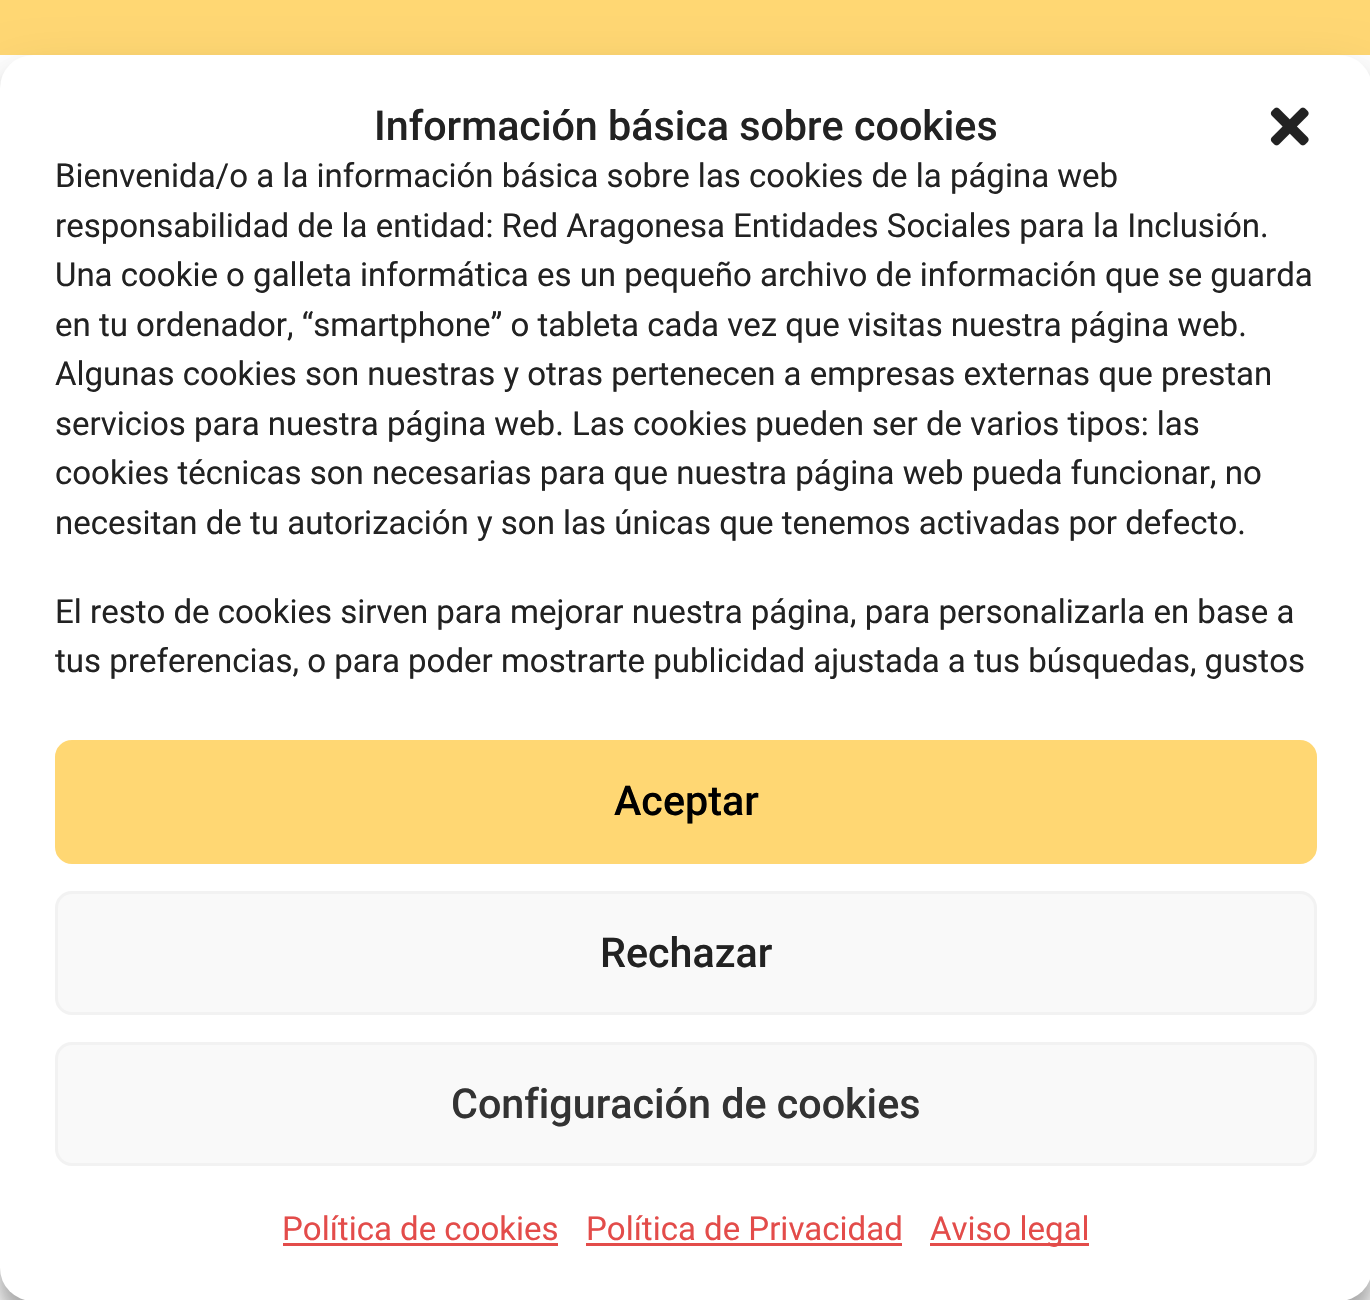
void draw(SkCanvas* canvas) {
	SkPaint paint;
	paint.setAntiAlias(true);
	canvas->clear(0xffffffff);
	paint.setColor(0xffffd773);
	canvas->drawRect(SkRect::MakeXYWH(0, 0, 1370, 55), paint);
	paint.setColor(0x3b000000);
	paint.setMaskFilter(SkMaskFilter::MakeBlur(kNormal_SkBlurStyle, 8));
	canvas->drawRoundRect(SkRect::MakeXYWH(0, 72, 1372, 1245), 33, 33, paint);
	paint.setMaskFilter(nullptr);
	paint.setColor(0x30000000);
	paint.setMaskFilter(SkMaskFilter::MakeBlur(kNormal_SkBlurStyle, 27.5));
	canvas->drawRoundRect(SkRect::MakeXYWH(0, 83, 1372, 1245), 33, 33, paint);
	paint.setMaskFilter(nullptr);
	paint.setColor(0xffffffff);
	canvas->drawRoundRect(SkRect::MakeXYWH(0, 55, 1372, 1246), 33, 33, paint);
	SkFont f1(fontMgr->matchFamilyStyle("Roboto", SkFontStyle(500, SkFontStyle::kNormal_Width, SkFontStyle::kUpright_Slant)), 41.25);
	f1.setSubpixel(true);
	paint.setColor(0xff222222);
	canvas->drawString("Información básica sobre cookies", 374, 140, f1, paint);
	canvas->drawImageRect(SkImages::DeferredFromEncodedData(SkData::MakeFromFileName("img1.png")), SkRect::MakeXYWH(1270, 107, 39, 39), SkSamplingOptions());
	SkFont f2(fontMgr->matchFamilyStyle("Roboto", SkFontStyle::Normal()), 33);
	f2.setSubpixel(true);
	canvas->drawString("Bienvenida/o a la información básica sobre las cookies de la página web", 55, 187, f2, paint);
	canvas->drawString("responsabilidad de la entidad: Red Aragonesa Entidades Sociales para la Inclusión.", 55, 237, f2, paint);
	canvas->drawString("Una cookie o galleta informática es un pequeño archivo de información que se guarda", 55, 286, f2, paint);
	canvas->drawString("en tu ordenador, “smartphone” o tableta cada vez que visitas nuestra página web.", 55, 336, f2, paint);
	canvas->drawString("Algunas cookies son nuestras y otras pertenecen a empresas externas que prestan", 55, 385, f2, paint);
	canvas->drawString("servicios para nuestra página web. Las cookies pueden ser de varios tipos: las", 55, 435, f2, paint);
	canvas->drawString("cookies técnicas son necesarias para que nuestra página web pueda funcionar, no", 55, 484, f2, paint);
	canvas->drawString("necesitan de tu autorización y son las únicas que tenemos activadas por defecto.", 55, 534, f2, paint);
	canvas->drawString("El resto de cookies sirven para mejorar nuestra página, para personalizarla en base a", 55, 623, f2, paint);
	canvas->drawString("tus preferencias, o para poder mostrarte publicidad ajustada a tus búsquedas, gustos", 55, 672, f2, paint);
	paint.setColor(0xffffd773);
	canvas->drawRoundRect(SkRect::MakeXYWH(56.5, 741.5, 1259, 121), 15.5, 15.5, paint);
	paint.setStroke(true);
	paint.setStrokeWidth(3);
	canvas->drawRoundRect(SkRect::MakeXYWH(56.5, 741.5, 1259, 121), 15.5, 15.5, paint);
	paint.setStroke(false);
	paint.setColor(0xff000000);
	canvas->drawString("Aceptar", 614, 815, f1, paint);
	paint.setColor(0xfff9f9f9);
	canvas->drawRoundRect(SkRect::MakeXYWH(56.5, 892.5, 1259, 121), 15.5, 15.5, paint);
	paint.setStroke(true);
	paint.setColor(0xfff2f2f2);
	canvas->drawRoundRect(SkRect::MakeXYWH(56.5, 892.5, 1259, 121), 15.5, 15.5, paint);
	paint.setStroke(false);
	paint.setColor(0xff222222);
	canvas->drawString("Rechazar", 600, 967, f1, paint);
	paint.setColor(0xfff9f9f9);
	canvas->drawRoundRect(SkRect::MakeXYWH(56.5, 1043.5, 1259, 121), 15.5, 15.5, paint);
	paint.setStroke(true);
	paint.setColor(0xfff2f2f2);
	canvas->drawRoundRect(SkRect::MakeXYWH(56.5, 1043.5, 1259, 121), 15.5, 15.5, paint);
	paint.setStroke(false);
	paint.setColor(0xff333333);
	canvas->drawString("Configuración de cookies", 451, 1118, f1, paint);
	paint.setColor(0xffe34c4a);
	canvas->drawString("Política de cookies", 282, 1240, f2, paint);
	canvas->drawRect(SkRect::MakeXYWH(283, 1243, 275, 3), paint);
	canvas->drawString("Política de Privacidad", 586, 1240, f2, paint);
	canvas->drawRect(SkRect::MakeXYWH(586, 1243, 316, 3), paint);
	canvas->drawRect(SkRect::MakeXYWH(930, 1243, 159, 3), paint);
	canvas->drawString("Aviso legal", 930, 1240, f2, paint);
}
